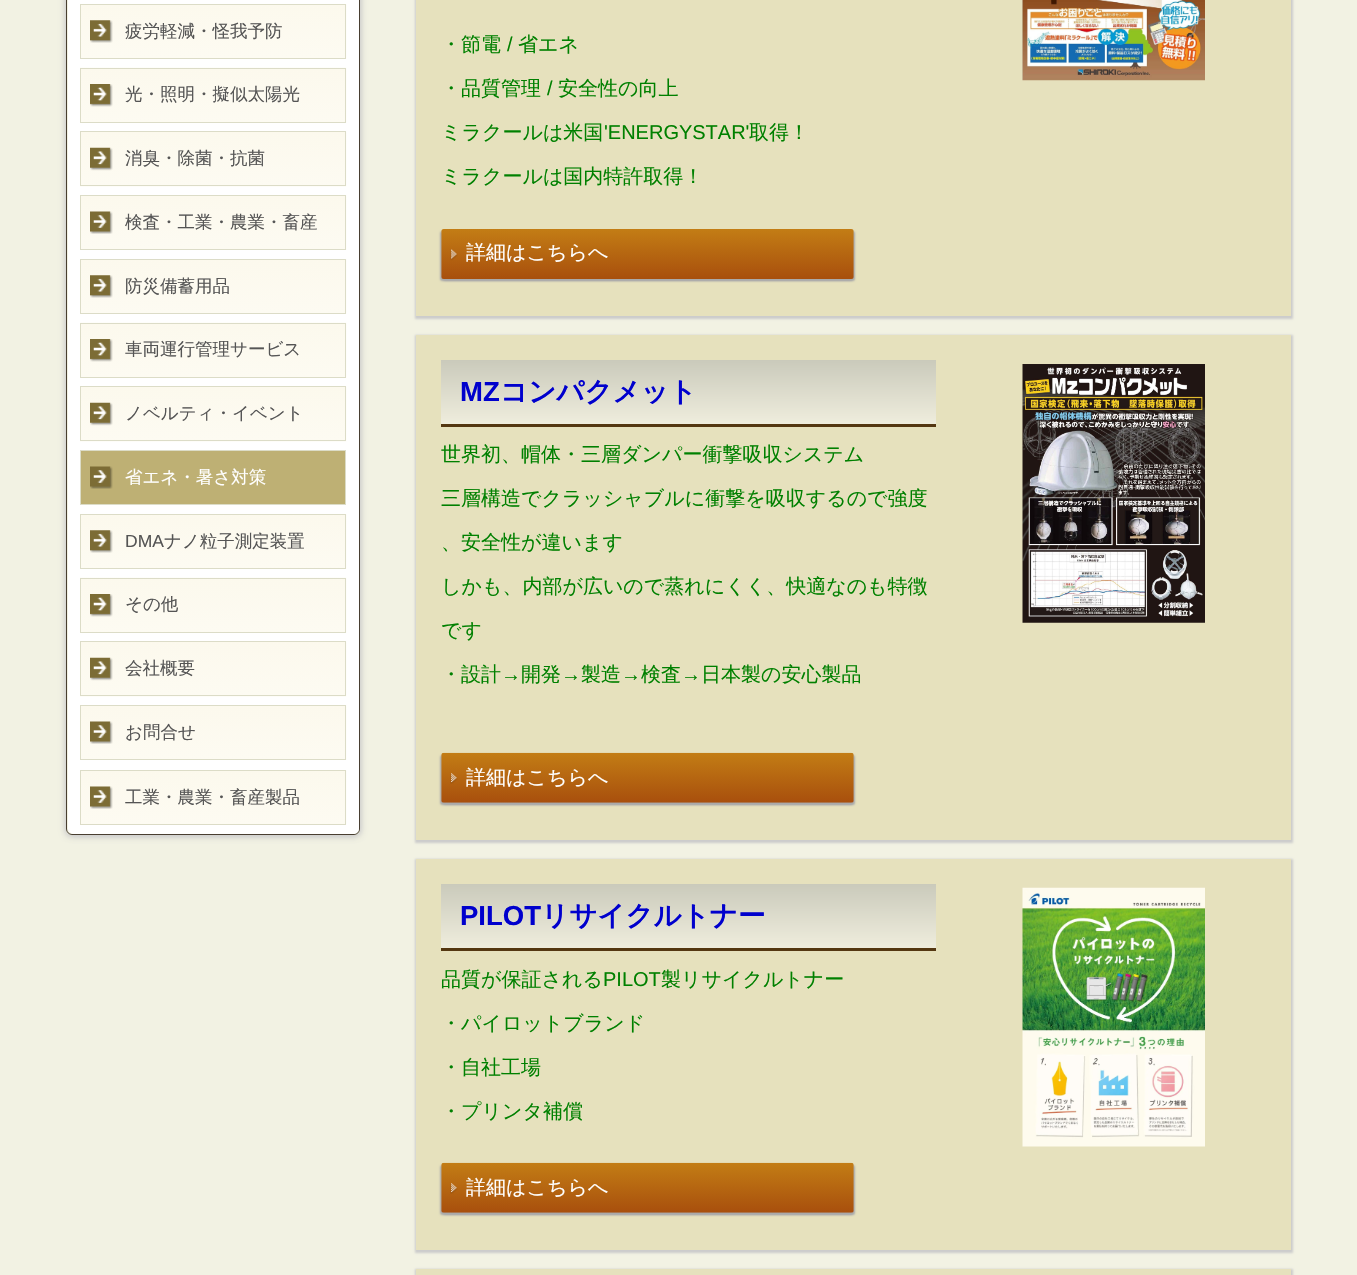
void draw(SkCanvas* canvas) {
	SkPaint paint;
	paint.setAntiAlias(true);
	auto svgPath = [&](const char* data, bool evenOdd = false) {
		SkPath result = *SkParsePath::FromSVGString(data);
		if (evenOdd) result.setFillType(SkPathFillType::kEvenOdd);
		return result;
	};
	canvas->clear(0xfff2f2e3);
	canvas->save();
	canvas->clipPath(svgPath("M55 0H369V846H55ZM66-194H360V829C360 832.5 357.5 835 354 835H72C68.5 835 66 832.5 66 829Z", true), true);
	paint.setColor(0xffcccccc);
	paint.setMaskFilter(SkMaskFilter::MakeBlur(kNormal_SkBlurStyle, 3));
	canvas->drawRoundRect(SkRect::MakeXYWH(65, -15, 294, 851), 6, 6, paint);
	paint.setMaskFilter(nullptr);
	canvas->restore();
	canvas->save();
	canvas->clipPath(svgPath("M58 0H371V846H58ZM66-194H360V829C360 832.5 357.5 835 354 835H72C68.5 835 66 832.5 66 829Z", true), true);
	paint.setMaskFilter(SkMaskFilter::MakeBlur(kNormal_SkBlurStyle, 3));
	canvas->drawRoundRect(SkRect::MakeXYWH(68, -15, 293, 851), 6, 6, paint);
	paint.setMaskFilter(nullptr);
	canvas->restore();
	paint.setStroke(true);
	paint.setStrokeWidth(1);
	paint.setColor(0xff483e30);
	canvas->drawPath(svgPath("M66.5-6.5H359.5V829C359.5 832 357 834.5 354 834.5H72C69 834.5 66.5 832 66.5 829Z"), paint);
	paint.setStroke(false);
	paint.setColor(0xffffffff);
	canvas->drawPath(svgPath("M68-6H359V828C359 831.5 356.5 834 353 834H74C70.5 834 68 831.5 68 828Z"), paint);
	canvas->drawImageRect(SkImages::DeferredFromEncodedData(SkData::MakeFromFileName("img1.png")), SkRect::MakeXYWH(81, 4, 266, 55), SkSamplingOptions());
	paint.setStroke(true);
	paint.setColor(0xffdcdcc7);
	canvas->drawRect(SkRect::MakeXYWH(80.5, 4.5, 265, 54), paint);
	SkFont f1(fontMgr->matchFamilyStyle("WenQuanYi Zen Hei", SkFontStyle(500, SkFontStyle::kNormal_Width, SkFontStyle::kUpright_Slant)), 17.5);
	f1.setSubpixel(true);
	paint.setStroke(false);
	paint.setColor(0xff555555);
	canvas->drawString("疲労軽減・怪我予防", 125, 37, f1, paint);
	canvas->drawImageRect(SkImages::DeferredFromEncodedData(SkData::MakeFromFileName("img2.png")), SkRect::MakeXYWH(80, 67, 267, 56), SkSamplingOptions());
	paint.setStroke(true);
	paint.setColor(0xffdcdcc7);
	canvas->drawRect(SkRect::MakeXYWH(80.5, 68.5, 265, 54), paint);
	paint.setStroke(false);
	paint.setColor(0xff555555);
	canvas->drawString("光・照明・擬似太陽光", 125, 100, f1, paint);
	canvas->drawImageRect(SkImages::DeferredFromEncodedData(SkData::MakeFromFileName("img3.png")), SkRect::MakeXYWH(80, 131, 267, 56), SkSamplingOptions());
	paint.setStroke(true);
	paint.setColor(0xffdcdcc7);
	canvas->drawRect(SkRect::MakeXYWH(80.5, 131.5, 265, 54), paint);
	paint.setStroke(false);
	paint.setColor(0xff555555);
	canvas->drawString("消臭・除菌・抗菌", 125, 164, f1, paint);
	canvas->drawImageRect(SkImages::DeferredFromEncodedData(SkData::MakeFromFileName("img4.png")), SkRect::MakeXYWH(81, 195, 266, 55), SkSamplingOptions());
	paint.setStroke(true);
	paint.setColor(0xffdcdcc7);
	canvas->drawRect(SkRect::MakeXYWH(80.5, 195.5, 265, 54), paint);
	paint.setStroke(false);
	paint.setColor(0xff555555);
	canvas->drawString("検査・工業・農業・畜産", 125, 228, f1, paint);
	canvas->drawImageRect(SkImages::DeferredFromEncodedData(SkData::MakeFromFileName("img5.png")), SkRect::MakeXYWH(81, 259, 266, 55), SkSamplingOptions());
	paint.setStroke(true);
	paint.setColor(0xffdcdcc7);
	canvas->drawRect(SkRect::MakeXYWH(80.5, 259.5, 265, 54), paint);
	paint.setStroke(false);
	paint.setColor(0xff555555);
	canvas->drawString("防災備蓄用品", 125, 292, f1, paint);
	canvas->drawImageRect(SkImages::DeferredFromEncodedData(SkData::MakeFromFileName("img6.png")), SkRect::MakeXYWH(80, 322, 267, 56), SkSamplingOptions());
	paint.setStroke(true);
	paint.setColor(0xffdcdcc7);
	canvas->drawRect(SkRect::MakeXYWH(80.5, 323.5, 265, 54), paint);
	paint.setStroke(false);
	paint.setColor(0xff555555);
	canvas->drawString("車両運行管理サービス", 125, 355, f1, paint);
	canvas->drawImageRect(SkImages::DeferredFromEncodedData(SkData::MakeFromFileName("img7.png")), SkRect::MakeXYWH(80, 386, 267, 56), SkSamplingOptions());
	paint.setStroke(true);
	paint.setColor(0xffdcdcc7);
	canvas->drawRect(SkRect::MakeXYWH(80.5, 386.5, 265, 54), paint);
	paint.setStroke(false);
	paint.setColor(0xff555555);
	canvas->drawString("ノベルティ・イベント", 125, 419, f1, paint);
	paint.setColor(0xffbeb074);
	canvas->drawRect(SkRect::MakeXYWH(81, 451, 264, 53), paint);
	canvas->drawImageRect(SkImages::DeferredFromEncodedData(SkData::MakeFromFileName("img8.png")), SkRect::MakeXYWH(90, 466, 23, 23), SkSamplingOptions());
	paint.setStroke(true);
	paint.setColor(0xffdcdcc7);
	canvas->drawRect(SkRect::MakeXYWH(80.5, 450.5, 265, 54), paint);
	paint.setStroke(false);
	paint.setColor(0xffffffff);
	canvas->drawString("省エネ・暑さ対策", 125, 483, f1, paint);
	canvas->drawImageRect(SkImages::DeferredFromEncodedData(SkData::MakeFromFileName("img9.png")), SkRect::MakeXYWH(81, 514, 266, 55), SkSamplingOptions());
	paint.setStroke(true);
	paint.setColor(0xffdcdcc7);
	canvas->drawRect(SkRect::MakeXYWH(80.5, 514.5, 265, 54), paint);
	SkFont f2(fontMgr->matchFamilyStyle("Liberation Sans", SkFontStyle::Normal()), 17.5);
	f2.setSubpixel(true);
	paint.setStroke(false);
	paint.setColor(0xff555555);
	canvas->drawString("DMA", 125, 547, f2, paint);
	canvas->drawString("ナノ粒子測定装置", 164, 547, f1, paint);
	canvas->drawImageRect(SkImages::DeferredFromEncodedData(SkData::MakeFromFileName("img10.png")), SkRect::MakeXYWH(80, 577, 267, 56), SkSamplingOptions());
	paint.setStroke(true);
	paint.setColor(0xffdcdcc7);
	canvas->drawRect(SkRect::MakeXYWH(80.5, 578.5, 265, 54), paint);
	paint.setStroke(false);
	paint.setColor(0xff555555);
	canvas->drawString("その他", 125, 610, f1, paint);
	canvas->drawImageRect(SkImages::DeferredFromEncodedData(SkData::MakeFromFileName("img11.png")), SkRect::MakeXYWH(80, 641, 267, 56), SkSamplingOptions());
	paint.setStroke(true);
	paint.setColor(0xffdcdcc7);
	canvas->drawRect(SkRect::MakeXYWH(80.5, 641.5, 265, 54), paint);
	paint.setStroke(false);
	paint.setColor(0xff555555);
	canvas->drawString("会社概要", 125, 674, f1, paint);
	canvas->drawImageRect(SkImages::DeferredFromEncodedData(SkData::MakeFromFileName("img12.png")), SkRect::MakeXYWH(81, 705, 266, 55), SkSamplingOptions());
	paint.setStroke(true);
	paint.setColor(0xffdcdcc7);
	canvas->drawRect(SkRect::MakeXYWH(80.5, 705.5, 265, 54), paint);
	paint.setStroke(false);
	paint.setColor(0xff555555);
	canvas->drawString("お問合せ", 125, 738, f1, paint);
	canvas->drawImageRect(SkImages::DeferredFromEncodedData(SkData::MakeFromFileName("img13.png")), SkRect::MakeXYWH(81, 770, 266, 55), SkSamplingOptions());
	paint.setStroke(true);
	paint.setColor(0xffdcdcc7);
	canvas->drawRect(SkRect::MakeXYWH(80.5, 770.5, 265, 54), paint);
	paint.setStroke(false);
	paint.setColor(0xff555555);
	canvas->drawString("工業・農業・畜産製品", 125, 803, f1, paint);
	paint.setColor(0xffcccccc);
	paint.setMaskFilter(SkMaskFilter::MakeBlur(kNormal_SkBlurStyle, 1));
	canvas->drawRect(SkRect::MakeXYWH(415, -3, 878, 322), paint);
	paint.setMaskFilter(nullptr);
	paint.setColor(0xffe6e1bd);
	canvas->drawRect(SkRect::MakeXYWH(416, 0, 875, 316), paint);
	SkFont f3(fontMgr->matchFamilyStyle("WenQuanYi Zen Hei", SkFontStyle(500, SkFontStyle::kNormal_Width, SkFontStyle::kUpright_Slant)), 20);
	f3.setSubpixel(true);
	paint.setColor(0xff008000);
	canvas->drawString("・節電", 441, 51, f3, paint);
	SkFont f4(fontMgr->matchFamilyStyle("Liberation Sans", SkFontStyle::Normal()), 20);
	f4.setSubpixel(true);
	canvas->drawString("/", 507, 51, f4, paint);
	canvas->drawString("省エネ", 518, 51, f3, paint);
	canvas->drawString("・品質管理", 441, 95, f3, paint);
	canvas->drawString("/", 547, 95, f4, paint);
	canvas->drawString("安全性の向上", 558, 95, f3, paint);
	canvas->drawString("ミラクールは米国", 441, 139, f3, paint);
	canvas->drawString("'ENERGYSTAR'", 604, 139, f4, paint);
	canvas->drawString("取得！", 749, 139, f3, paint);
	canvas->drawString("ミラクールは国内特許取得！", 441, 183, f3, paint);
	paint.setColor(0xffaaaaaa);
	paint.setMaskFilter(SkMaskFilter::MakeBlur(kNormal_SkBlurStyle, 1));
	canvas->drawRoundRect(SkRect::MakeXYWH(440, 231, 413, 50), 2.5, 2.5, paint);
	paint.setMaskFilter(nullptr);
	paint.setMaskFilter(SkMaskFilter::MakeBlur(kNormal_SkBlurStyle, 1));
	canvas->drawRoundRect(SkRect::MakeXYWH(443, 231, 412, 50), 2.5, 2.5, paint);
	paint.setMaskFilter(nullptr);
	canvas->drawImageRect(SkImages::DeferredFromEncodedData(SkData::MakeFromFileName("img14.png")), SkRect::MakeXYWH(441, 229, 413, 50), SkSamplingOptions());
	paint.setColor(0xffffffff);
	canvas->drawString("詳細はこちらへ", 466, 259, f3, paint);
	canvas->drawImageRect(SkImages::DeferredFromEncodedData(SkData::MakeFromFileName("img15.png")), SkRect::MakeXYWH(1022, 0, 183, 81), SkSamplingOptions());
	paint.setColor(0xffcccccc);
	paint.setMaskFilter(SkMaskFilter::MakeBlur(kNormal_SkBlurStyle, 1));
	canvas->drawRect(SkRect::MakeXYWH(415, 335, 878, 508), paint);
	paint.setMaskFilter(nullptr);
	paint.setColor(0xffe6e1bd);
	canvas->drawRect(SkRect::MakeXYWH(416, 335, 875, 505), paint);
	{
		const SkColor colors[] = {0xffcacabb, 0xffefeddd};
		const float stops[] = {0, 1};
		const SkPoint ends[] = {{689, 360}, {689, 424}};
		paint.setShader(SkGradientShader::MakeLinear(ends, colors, stops, 2, SkTileMode::kClamp));
		paint.setAlpha(255);
	}
	canvas->drawRect(SkRect::MakeXYWH(441, 360, 495, 64), paint);
	paint.setShader(nullptr);
	paint.setColor(0xff543711);
	canvas->drawRect(SkRect::MakeXYWH(441, 424, 495, 3), paint);
	SkFont f5(fontMgr->matchFamilyStyle("Liberation Sans", SkFontStyle::Bold()), 27.5);
	f5.setSubpixel(true);
	paint.setColor(0xff0000cd);
	canvas->drawString("MZ", 460, 401, f5, paint);
	SkFont f6(fontMgr->matchFamilyStyle("WenQuanYi Zen Hei", SkFontStyle::Bold()), 27.5);
	f6.setSubpixel(true);
	canvas->drawString("コンパクメット", 500, 401, f6, paint);
	paint.setColor(0xff008000);
	canvas->drawString("世界初、帽体・三層ダンパー衝撃吸収システム", 441, 461, f3, paint);
	canvas->drawString("三層構造でクラッシャブルに衝撃を吸収するので強度", 441, 505, f3, paint);
	canvas->drawString("、安全性が違います", 441, 549, f3, paint);
	canvas->drawString("しかも、内部が広いので蒸れにくく、快適なのも特徴", 441, 593, f3, paint);
	canvas->drawString("です", 441, 637, f3, paint);
	canvas->drawString("・設計", 441, 681, f3, paint);
	canvas->drawString("→", 501, 681, f4, paint);
	canvas->drawString("開発", 521, 681, f3, paint);
	canvas->drawString("→", 561, 681, f4, paint);
	canvas->drawString("製造", 581, 681, f3, paint);
	canvas->drawString("→", 621, 681, f4, paint);
	canvas->drawString("検査", 641, 681, f3, paint);
	canvas->drawString("→", 681, 681, f4, paint);
	canvas->drawString("日本製の安心製品", 701, 681, f3, paint);
	paint.setColor(0xffaaaaaa);
	paint.setMaskFilter(SkMaskFilter::MakeBlur(kNormal_SkBlurStyle, 1));
	canvas->drawRoundRect(SkRect::MakeXYWH(440, 755, 413, 50), 2.5, 2.5, paint);
	paint.setMaskFilter(nullptr);
	paint.setMaskFilter(SkMaskFilter::MakeBlur(kNormal_SkBlurStyle, 1));
	canvas->drawRoundRect(SkRect::MakeXYWH(443, 755, 412, 50), 2.5, 2.5, paint);
	paint.setMaskFilter(nullptr);
	canvas->drawImageRect(SkImages::DeferredFromEncodedData(SkData::MakeFromFileName("img16.png")), SkRect::MakeXYWH(441, 752, 413, 51), SkSamplingOptions());
	paint.setColor(0xffffffff);
	canvas->drawString("詳細はこちらへ", 466, 784, f3, paint);
	canvas->drawImageRect(SkImages::DeferredFromEncodedData(SkData::MakeFromFileName("img17.png")), SkRect::MakeXYWH(1022, 364, 183, 259), SkSamplingOptions());
	paint.setColor(0xffcccccc);
	paint.setMaskFilter(SkMaskFilter::MakeBlur(kNormal_SkBlurStyle, 1));
	canvas->drawRect(SkRect::MakeXYWH(415, 859, 878, 394), paint);
	paint.setMaskFilter(nullptr);
	paint.setColor(0xffe6e1bd);
	canvas->drawRect(SkRect::MakeXYWH(416, 859, 875, 391), paint);
	{
		const SkColor colors[] = {0xffcacabb, 0xffefeddd};
		const float stops[] = {0, 1};
		const SkPoint ends[] = {{689, 884}, {689, 948}};
		paint.setShader(SkGradientShader::MakeLinear(ends, colors, stops, 2, SkTileMode::kClamp));
		paint.setAlpha(255);
	}
	canvas->drawRect(SkRect::MakeXYWH(441, 884, 495, 64), paint);
	paint.setShader(nullptr);
	paint.setColor(0xff543711);
	canvas->drawRect(SkRect::MakeXYWH(441, 948, 495, 3), paint);
	paint.setColor(0xff0000cd);
	canvas->drawString("PILOT", 460, 925, f5, paint);
	canvas->drawString("リサイクルトナー", 541, 925, f6, paint);
	paint.setColor(0xff008000);
	canvas->drawString("品質が保証される", 441, 986, f3, paint);
	canvas->drawString("PILOT", 603, 986, f4, paint);
	canvas->drawString("製リサイクルトナー", 661, 986, f3, paint);
	canvas->drawString("・パイロットブランド", 441, 1030, f3, paint);
	canvas->drawString("・自社工場", 441, 1074, f3, paint);
	canvas->drawString("・プリンタ補償", 441, 1118, f3, paint);
	paint.setColor(0xffaaaaaa);
	paint.setMaskFilter(SkMaskFilter::MakeBlur(kNormal_SkBlurStyle, 1));
	canvas->drawRoundRect(SkRect::MakeXYWH(440, 1165, 413, 50), 2.5, 2.5, paint);
	paint.setMaskFilter(nullptr);
	paint.setMaskFilter(SkMaskFilter::MakeBlur(kNormal_SkBlurStyle, 1));
	canvas->drawRoundRect(SkRect::MakeXYWH(443, 1165, 412, 50), 2.5, 2.5, paint);
	paint.setMaskFilter(nullptr);
	canvas->drawImageRect(SkImages::DeferredFromEncodedData(SkData::MakeFromFileName("img16.png")), SkRect::MakeXYWH(441, 1162, 413, 51), SkSamplingOptions());
	paint.setColor(0xffffffff);
	canvas->drawString("詳細はこちらへ", 466, 1194, f3, paint);
	canvas->drawImageRect(SkImages::DeferredFromEncodedData(SkData::MakeFromFileName("img18.png")), SkRect::MakeXYWH(1022, 887, 183, 260), SkSamplingOptions());
	paint.setColor(0xffcccccc);
	paint.setMaskFilter(SkMaskFilter::MakeBlur(kNormal_SkBlurStyle, 1));
	canvas->drawRect(SkRect::MakeXYWH(415, 1269, 878, 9), paint);
	paint.setMaskFilter(nullptr);
	paint.setColor(0xffe6e1bd);
	canvas->drawRect(SkRect::MakeXYWH(416, 1269, 875, 6), paint);
}
